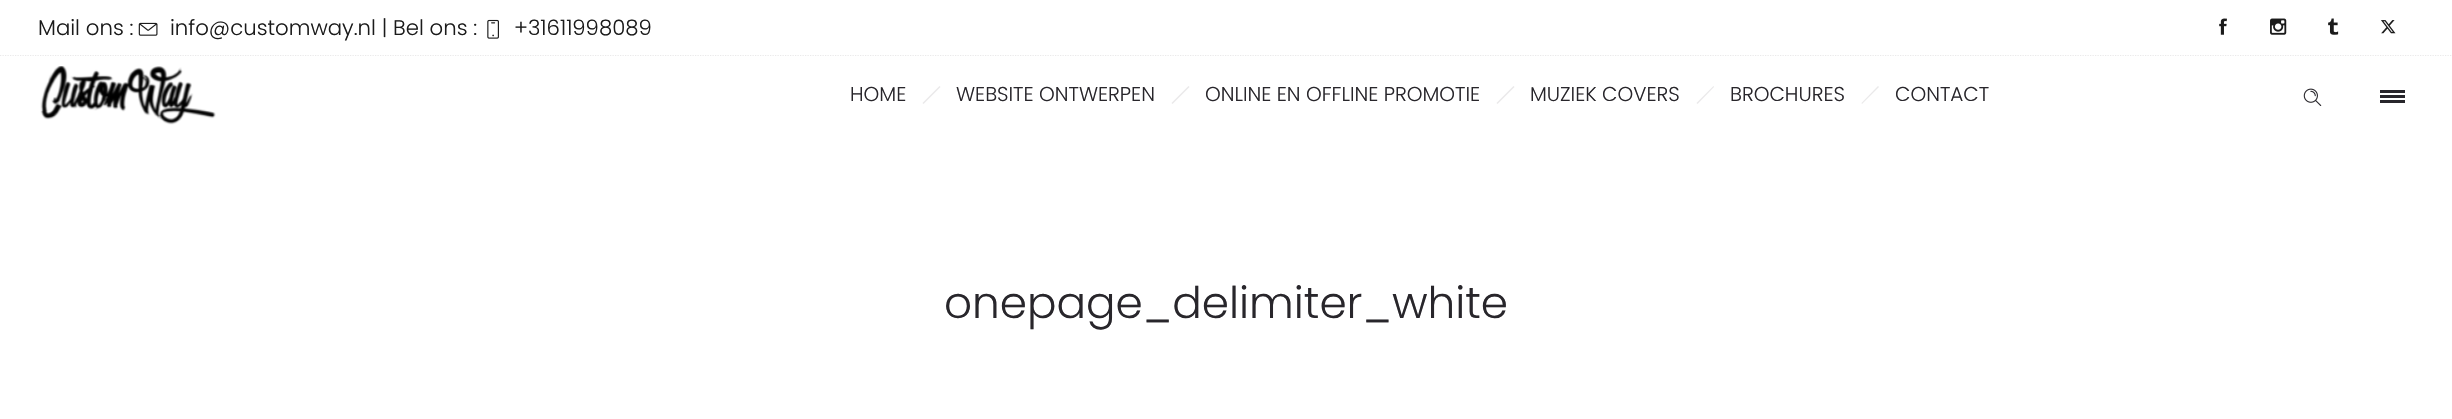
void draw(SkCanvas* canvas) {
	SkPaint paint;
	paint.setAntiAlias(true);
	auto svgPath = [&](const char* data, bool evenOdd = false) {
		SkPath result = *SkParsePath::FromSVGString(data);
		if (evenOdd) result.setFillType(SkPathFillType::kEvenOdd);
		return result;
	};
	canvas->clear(0xffffffff);
	paint.setStroke(true);
	paint.setStrokeWidth(1.2);
	paint.setColor(0xffeae9ea);
	paint.setPathEffect(SkDashPathEffect::Make({{1.25f, 1.25f}}, 0));
	canvas->drawPath(svgPath("M0 55.5H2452.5"), paint);
	paint.setPathEffect(nullptr);
	SkFont f1(fontMgr->matchFamilyStyle("Poppins", SkFontStyle(300, SkFontStyle::kNormal_Width, SkFontStyle::kUpright_Slant)), 21.25);
	f1.setSubpixel(true);
	paint.setStroke(false);
	paint.setColor(0xff1b1b1b);
	canvas->drawString("Mail ons :", 38, 35, f1, paint);
	canvas->drawImageRect(SkImages::DeferredFromEncodedData(SkData::MakeFromFileName("img1.png")), SkRect::MakeXYWH(138, 22, 20, 14), SkSamplingOptions());
	canvas->drawString("info@customway.nl | Bel ons :", 170, 35, f1, paint);
	canvas->drawImageRect(SkImages::DeferredFromEncodedData(SkData::MakeFromFileName("img2.png")), SkRect::MakeXYWH(487, 19, 12, 20), SkSamplingOptions());
	canvas->drawString("+31611998089", 514, 35, f1, paint);
	canvas->drawImageRect(SkImages::DeferredFromEncodedData(SkData::MakeFromFileName("img3.png")), SkRect::MakeXYWH(2219, 18, 8, 17), SkSamplingOptions());
	canvas->drawImageRect(SkImages::DeferredFromEncodedData(SkData::MakeFromFileName("img4.png")), SkRect::MakeXYWH(2270, 18, 17, 17), SkSamplingOptions());
	canvas->drawImageRect(SkImages::DeferredFromEncodedData(SkData::MakeFromFileName("img5.png")), SkRect::MakeXYWH(2328, 18, 11, 17), SkSamplingOptions());
	canvas->drawImageRect(SkImages::DeferredFromEncodedData(SkData::MakeFromFileName("img6.png")), SkRect::MakeXYWH(2381, 20, 15, 14), SkSamplingOptions());
	canvas->drawImageRect(SkImages::DeferredFromEncodedData(SkData::MakeFromFileName("img7.png")), SkRect::MakeXYWH(40, 66, 176, 59), SkSamplingOptions());
	SkFont f2(fontMgr->matchFamilyStyle("Poppins", SkFontStyle(300, SkFontStyle::kNormal_Width, SkFontStyle::kUpright_Slant)), 20);
	f2.setSubpixel(true);
	paint.setColor(0xff28262b);
	canvas->drawString("HOME", 850, 101, f2, paint);
	paint.setColor(0xffeae9ea);
	canvas->drawPath(svgPath("M939.5 86L940.5 87L923.5 104L922.5 103Z"), paint);
	paint.setColor(0xff28262b);
	canvas->drawString("WEBSITE ONTWERPEN", 956, 101, f2, paint);
	paint.setColor(0xffeae9ea);
	canvas->drawPath(svgPath("M1188.5 86L1189.5 87L1172.5 104L1171.5 103Z"), paint);
	paint.setColor(0xff28262b);
	canvas->drawString("ONLINE EN OFFLINE PROMOTIE", 1205, 101, f2, paint);
	paint.setColor(0xffeae9ea);
	canvas->drawPath(svgPath("M1513.5 86L1514.5 87L1497.5 104L1496.5 103Z"), paint);
	paint.setColor(0xff28262b);
	canvas->drawString("MUZIEK COVERS", 1530, 101, f2, paint);
	paint.setColor(0xffeae9ea);
	canvas->drawPath(svgPath("M1713.5 86L1714 87L1697.5 104L1696.5 103Z"), paint);
	paint.setColor(0xff28262b);
	canvas->drawString("BROCHURES", 1730, 101, f2, paint);
	paint.setColor(0xffeae9ea);
	canvas->drawPath(svgPath("M1878 86L1879 87L1862 104L1861.5 103Z"), paint);
	paint.setColor(0xff28262b);
	canvas->drawString("CONTACT", 1895, 101, f2, paint);
	canvas->drawImageRect(SkImages::DeferredFromEncodedData(SkData::MakeFromFileName("img8.png")), SkRect::MakeXYWH(2303, 88, 19, 18), SkSamplingOptions());
	canvas->drawRect(SkRect::MakeXYWH(2380, 90, 25, 3), paint);
	canvas->drawRect(SkRect::MakeXYWH(2380, 95, 25, 3), paint);
	canvas->drawRect(SkRect::MakeXYWH(2380, 100, 25, 3), paint);
	SkFont f3(fontMgr->matchFamilyStyle("Poppins", SkFontStyle(300, SkFontStyle::kNormal_Width, SkFontStyle::kUpright_Slant)), 43.75);
	f3.setSubpixel(true);
	canvas->drawString("onepage_delimiter_white", 944, 318, f3, paint);
}
